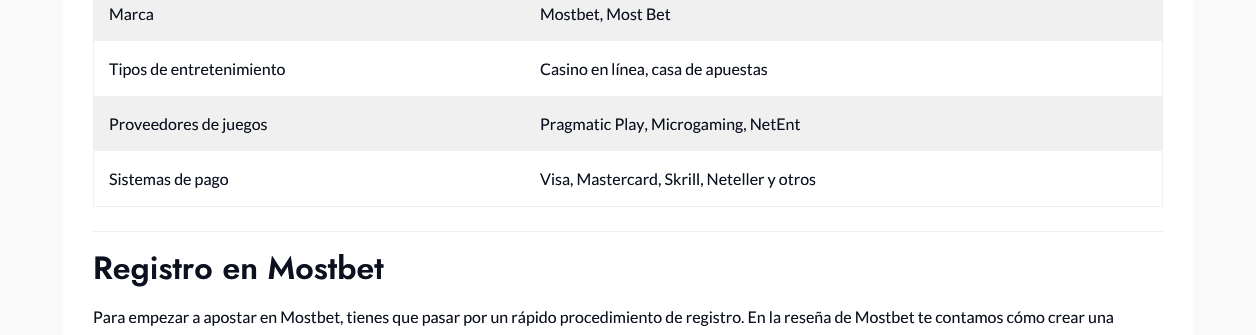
void draw(SkCanvas* canvas) {
	SkPaint paint;
	paint.setAntiAlias(true);
	canvas->clear(0xfffafafa);
	paint.setColor(0xffffffff);
	canvas->drawRect(SkRect::MakeXYWH(63, 0, 1130, 335), paint);
	paint.setColor(0xfff0f0f0);
	canvas->drawRect(SkRect::MakeXYWH(93, 231, 1070, 1), paint);
	paint.setColor(0xffefefef);
	canvas->drawRect(SkRect::MakeXYWH(1162, 0, 1, 207), paint);
	canvas->drawRect(SkRect::MakeXYWH(93, 206, 1070, 1), paint);
	canvas->drawRect(SkRect::MakeXYWH(93, 0, 1, 207), paint);
	paint.setColor(0xfff0f0f0);
	canvas->drawRect(SkRect::MakeXYWH(94, 0, 1068, 41), paint);
	SkFont f1(fontMgr->matchFamilyStyle("Lato", SkFontStyle::Normal()), 16);
	f1.setSubpixel(true);
	paint.setColor(0xff0b111e);
	canvas->drawString("Marca", 109, 20, f1, paint);
	canvas->drawString("Mostbet, Most Bet", 540, 20, f1, paint);
	canvas->drawString("Tipos de entretenimiento", 109, 75, f1, paint);
	canvas->drawString("Casino en línea, casa de apuestas", 540, 75, f1, paint);
	paint.setColor(0xfff0f0f0);
	canvas->drawRect(SkRect::MakeXYWH(94, 96, 1068, 55), paint);
	paint.setColor(0xff0b111e);
	canvas->drawString("Proveedores de juegos", 109, 130, f1, paint);
	canvas->drawString("Pragmatic Play, Microgaming, NetEnt", 540, 130, f1, paint);
	canvas->drawString("Sistemas de pago", 109, 185, f1, paint);
	canvas->drawString("Visa, Mastercard, Skrill, Neteller y otros", 540, 185, f1, paint);
	SkFont f2(fontMgr->matchFamilyStyle("Jost", SkFontStyle(600, SkFontStyle::kNormal_Width, SkFontStyle::kUpright_Slant)), 32);
	f2.setSubpixel(true);
	canvas->drawString("Registro en Mostbet", 93, 279, f2, paint);
	canvas->drawString("Para empezar a apostar en Mostbet, tienes que pasar por un rápido procedimiento de registro. En la reseña de Mostbet te contamos cómo crear una", 93, 323, f1, paint);
}
